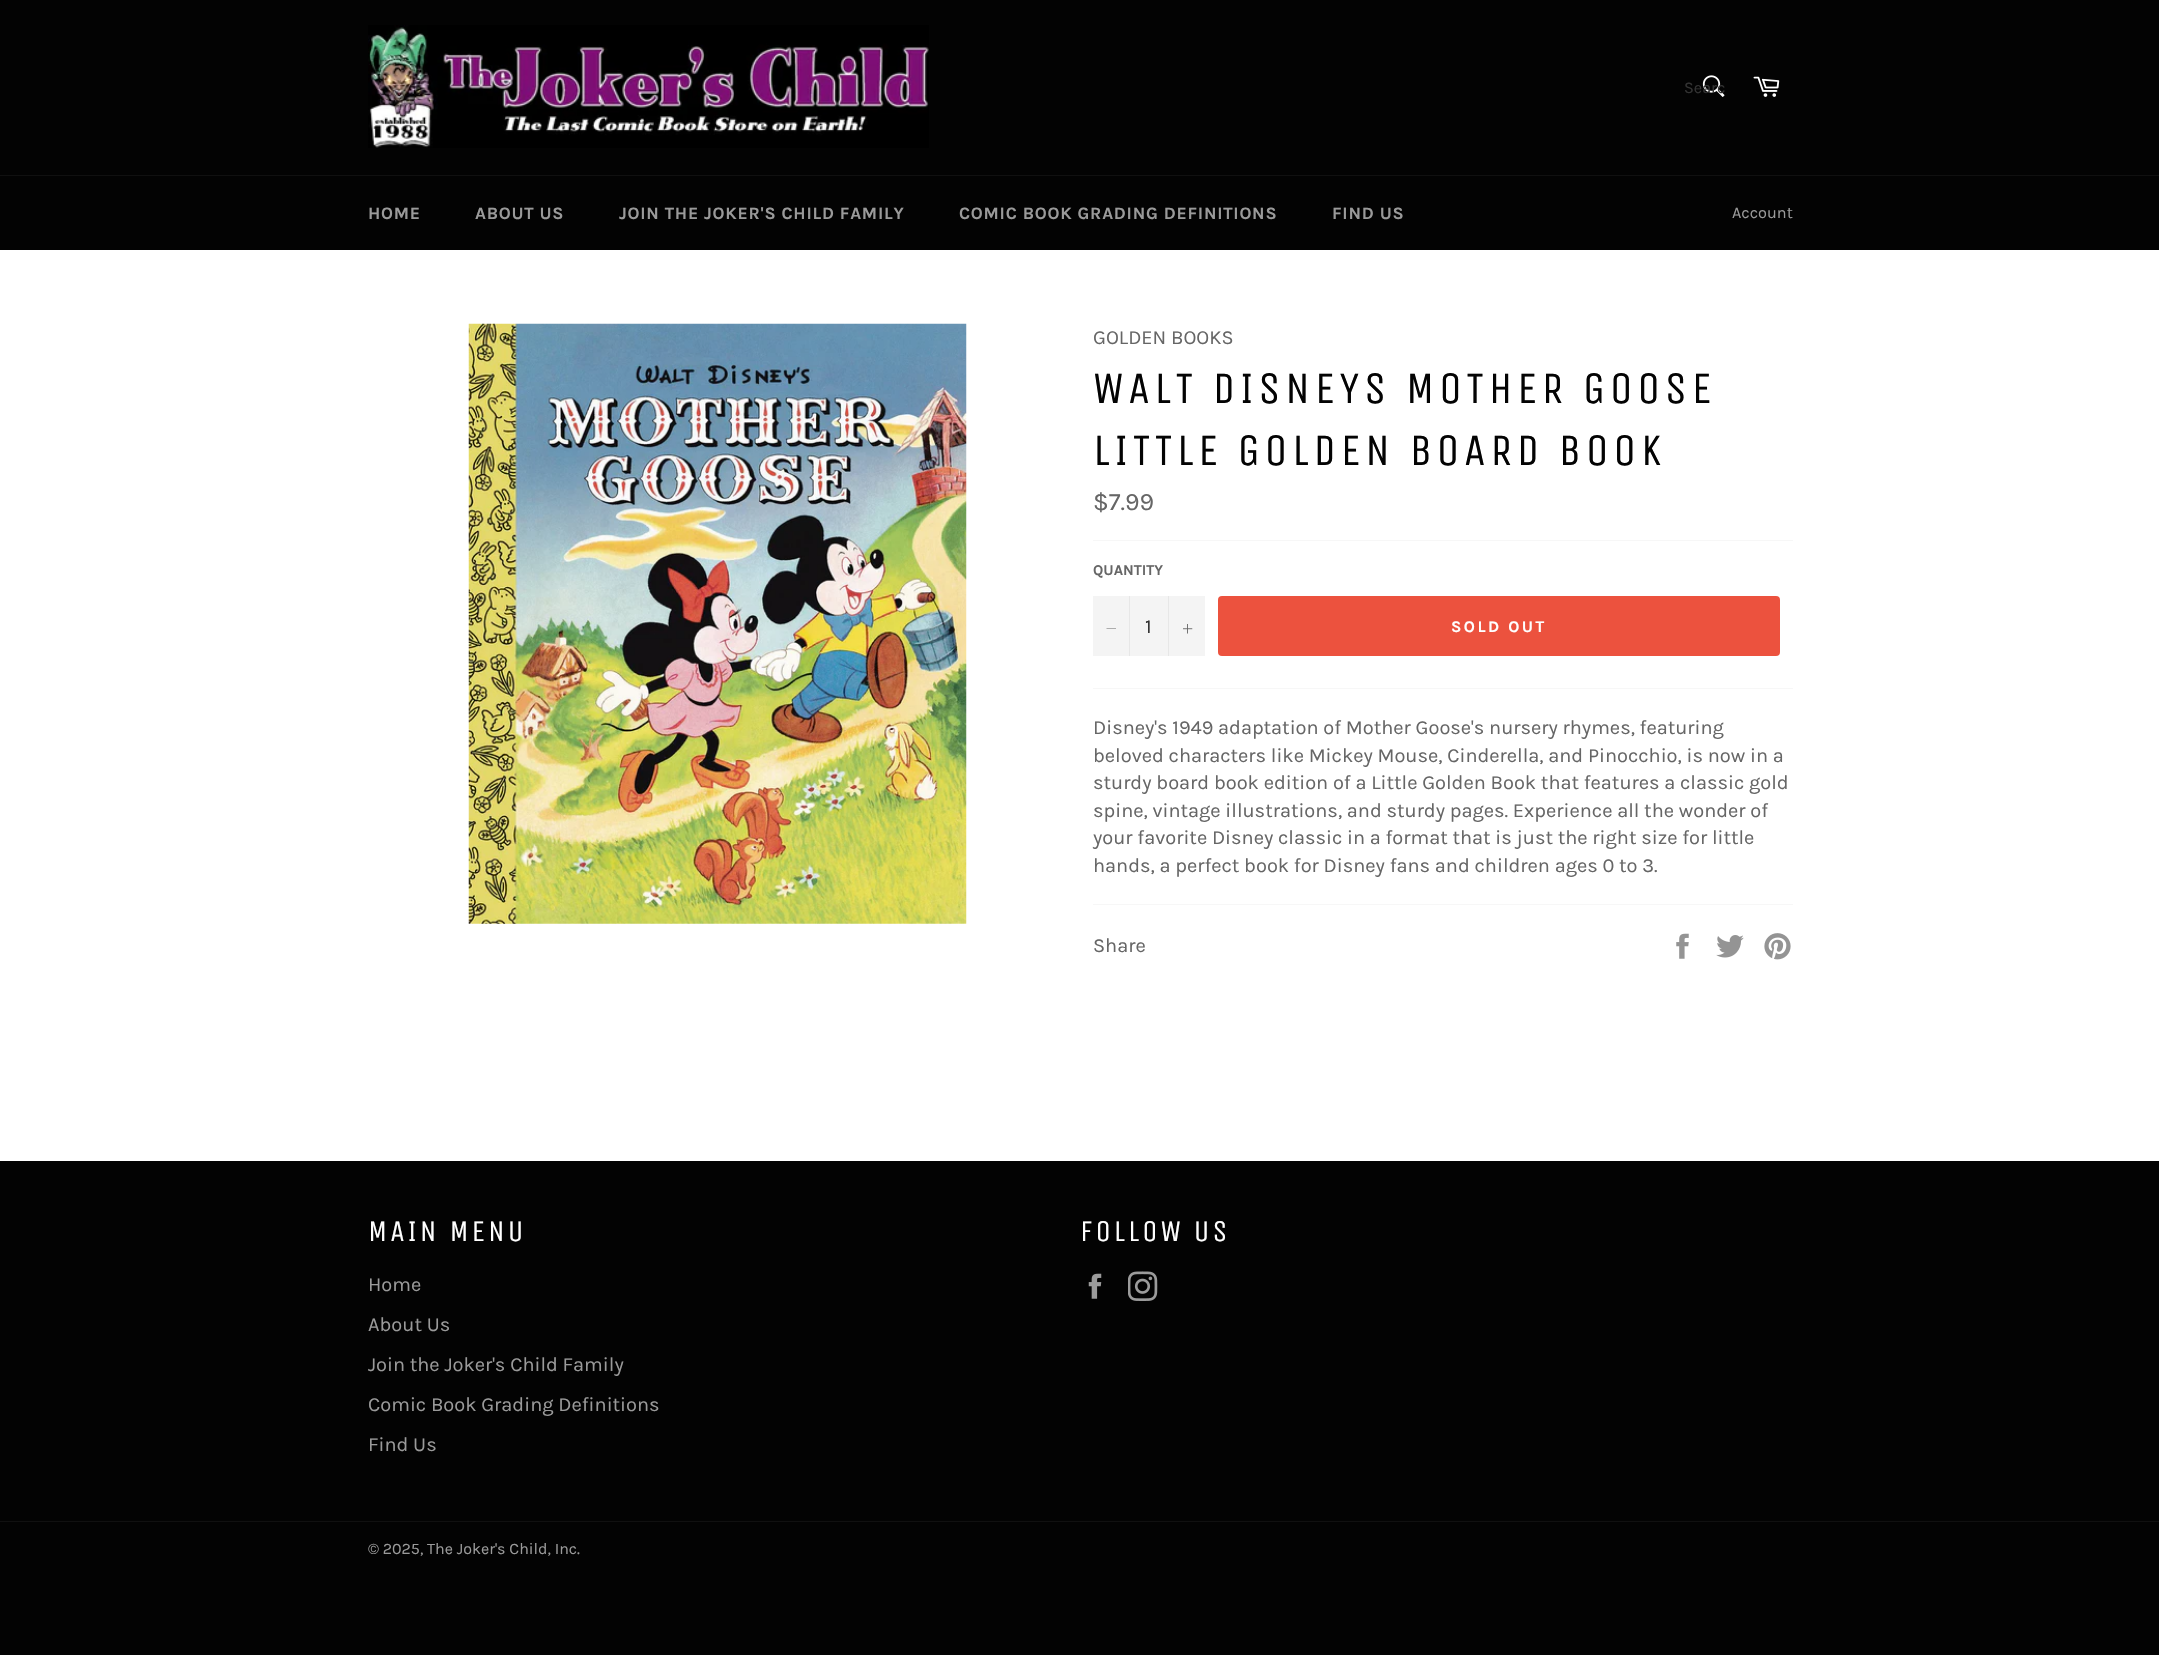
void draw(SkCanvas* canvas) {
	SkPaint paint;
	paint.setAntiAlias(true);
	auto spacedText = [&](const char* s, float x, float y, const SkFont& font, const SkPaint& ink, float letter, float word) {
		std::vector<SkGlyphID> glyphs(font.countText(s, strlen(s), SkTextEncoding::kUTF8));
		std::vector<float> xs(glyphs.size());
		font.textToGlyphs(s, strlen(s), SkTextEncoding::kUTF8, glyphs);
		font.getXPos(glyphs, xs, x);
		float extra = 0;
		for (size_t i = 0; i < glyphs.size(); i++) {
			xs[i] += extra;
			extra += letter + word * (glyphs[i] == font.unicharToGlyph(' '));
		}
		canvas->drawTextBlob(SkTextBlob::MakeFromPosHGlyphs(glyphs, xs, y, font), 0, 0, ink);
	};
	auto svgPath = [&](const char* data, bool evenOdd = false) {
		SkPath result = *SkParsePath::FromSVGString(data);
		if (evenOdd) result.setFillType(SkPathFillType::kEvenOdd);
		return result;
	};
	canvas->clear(0xff030303);
	canvas->drawImageRect(SkImages::DeferredFromEncodedData(SkData::MakeFromFileName("img1.png")), SkRect::MakeXYWH(368, 25, 561, 123), SkSamplingOptions());
	canvas->drawImageRect(SkImages::DeferredFromEncodedData(SkData::MakeFromFileName("img2.png")), SkRect::MakeXYWH(1702, 75, 23, 22), SkSamplingOptions());
	SkFont f1(fontMgr->matchFamilyStyle("Karla", SkFontStyle::Normal()), 16.25);
	f1.setSubpixel(true);
	paint.setColor(0xff333333);
	canvas->drawString("Searc", 1684, 93, f1, paint);
	canvas->drawImageRect(SkImages::DeferredFromEncodedData(SkData::MakeFromFileName("img3.png")), SkRect::MakeXYWH(1753, 76, 27, 21), SkSamplingOptions());
	paint.setColor(0xff101010);
	canvas->drawRect(SkRect::MakeXYWH(0, 175, 2159, 1), paint);
	SkFont f2(fontMgr->matchFamilyStyle("Karla", SkFontStyle::Bold()), 17.5);
	f2.setSubpixel(true);
	paint.setColor(0xff9a9a9a);
	spacedText("HOME", 368, 219, f2, paint, 0.75, 0);
	spacedText("ABOUT US", 475, 219, f2, paint, 0.75, 0);
	spacedText("JOIN THE JOKER'S CHILD FAMILY", 619, 219, f2, paint, 0.75, 0);
	spacedText("COMIC BOOK GRADING DEFINITIONS", 959, 219, f2, paint, 0.75, 0);
	spacedText("FIND US", 1332, 219, f2, paint, 0.75, 0);
	canvas->drawString("Account", 1732, 218, f1, paint);
	paint.setColor(0xffffffff);
	canvas->drawRect(SkRect::MakeXYWH(0, 250, 2159, 911), paint);
	canvas->drawImageRect(SkImages::DeferredFromEncodedData(SkData::MakeFromFileName("img4.png")), SkRect::MakeXYWH(468, 323, 499, 601), SkSamplingOptions());
	SkFont f3(fontMgr->matchFamilyStyle("Karla", SkFontStyle::Normal()), 20);
	f3.setSubpixel(true);
	paint.setColor(0xff666666);
	canvas->drawString("GOLDEN BOOKS", 1093, 344, f3, paint);
	SkFont f4(fontMgr->matchFamilyStyle("Unica One", SkFontStyle::Normal()), 45);
	f4.setSubpixel(true);
	paint.setColor(0xff030303);
	spacedText("WALT DISNEYS MOTHER GOOSE", 1093, 403, f4, paint, 4.5, 0);
	spacedText("LITTLE GOLDEN BOARD BOOK", 1093, 465, f4, paint, 4.5, 0);
	SkFont f5(fontMgr->matchFamilyStyle("Karla", SkFontStyle::Normal()), 25);
	f5.setSubpixel(true);
	paint.setColor(0xff666666);
	canvas->drawString("$7.99", 1093, 510, f5, paint);
	paint.setColor(0xfff7f7f7);
	canvas->drawRect(SkRect::MakeXYWH(1093, 540, 700, 1), paint);
	SkFont f6(fontMgr->matchFamilyStyle("Karla", SkFontStyle::Bold()), 15);
	f6.setSubpixel(true);
	paint.setColor(0xff666666);
	canvas->drawString("QUANTITY", 1093, 575, f6, paint);
	paint.setColor(0xfff4f4f4);
	canvas->drawRect(SkRect::MakeXYWH(1093, 596, 112, 60), paint);
	paint.setColor(0xffe7e7e7);
	canvas->drawRect(SkRect::MakeXYWH(1129, 596, 1, 60), paint);
	paint.setColor(0xff666666);
	canvas->drawPath(svgPath("M1116 628.5V629H1106.5V628.5Z", true), paint);
	paint.setColor(0xff333333);
	canvas->drawString("1", 1145, 633, f3, paint);
	paint.setColor(0xffe7e7e7);
	canvas->drawRect(SkRect::MakeXYWH(1168, 596, 1, 60), paint);
	canvas->drawImageRect(SkImages::DeferredFromEncodedData(SkData::MakeFromFileName("img5.png")), SkRect::MakeXYWH(1183, 624, 10, 10), SkSamplingOptions());
	paint.setColor(0xffec523e);
	canvas->drawRoundRect(SkRect::MakeXYWH(1218, 596, 562, 60), 4, 4, paint);
	SkFont f7(fontMgr->matchFamilyStyle("Karla", SkFontStyle::Bold()), 16.25);
	f7.setSubpixel(true);
	paint.setColor(0xffffffff);
	spacedText("SOLD OUT", 1451, 632, f7, paint, 2.5, 0);
	paint.setColor(0xfff7f7f7);
	canvas->drawRect(SkRect::MakeXYWH(1093, 688, 700, 1), paint);
	paint.setColor(0xff666666);
	canvas->drawString("Disney's 1949 adaptation of Mother Goose's nursery rhymes, featuring", 1093, 734, f3, paint);
	canvas->drawString("beloved characters like Mickey Mouse, Cinderella, and Pinocchio, is now in a", 1093, 762, f3, paint);
	canvas->drawString("sturdy board book edition of a Little Golden Book that features a classic gold", 1093, 789, f3, paint);
	canvas->drawString("spine, vintage illustrations, and sturdy pages. Experience all the wonder of", 1093, 817, f3, paint);
	canvas->drawString("your favorite Disney classic in a format that is just the right size for little", 1093, 844, f3, paint);
	canvas->drawString("hands, a perfect book for Disney fans and children ages 0 to 3.", 1093, 872, f3, paint);
	paint.setColor(0xfff7f7f7);
	canvas->drawRect(SkRect::MakeXYWH(1093, 904, 700, 1), paint);
	paint.setColor(0xff666666);
	canvas->drawString("Share", 1093, 952, f3, paint);
	canvas->drawImageRect(SkImages::DeferredFromEncodedData(SkData::MakeFromFileName("img6.png")), SkRect::MakeXYWH(1676, 933, 13, 26), SkSamplingOptions());
	canvas->drawImageRect(SkImages::DeferredFromEncodedData(SkData::MakeFromFileName("img7.png")), SkRect::MakeXYWH(1716, 935, 28, 23), SkSamplingOptions());
	canvas->drawImageRect(SkImages::DeferredFromEncodedData(SkData::MakeFromFileName("img8.png")), SkRect::MakeXYWH(1764, 933, 27, 27), SkSamplingOptions());
	SkFont f8(fontMgr->matchFamilyStyle("Unica One", SkFontStyle::Normal()), 30);
	f8.setSubpixel(true);
	paint.setColor(0xffffffff);
	spacedText("MAIN MENU", 368, 1241, f8, paint, 3, 0);
	paint.setColor(0xff9a9a9a);
	canvas->drawString("Home", 368, 1291, f3, paint);
	canvas->drawString("About Us", 368, 1331, f3, paint);
	canvas->drawString("Join the Joker's Child Family", 368, 1371, f3, paint);
	canvas->drawString("Comic Book Grading Definitions", 368, 1411, f3, paint);
	canvas->drawString("Find Us", 368, 1451, f3, paint);
	paint.setColor(0xffffffff);
	spacedText("FOLLOW US", 1080, 1241, f8, paint, 3, 0);
	canvas->drawImageRect(SkImages::DeferredFromEncodedData(SkData::MakeFromFileName("img9.png")), SkRect::MakeXYWH(1088, 1273, 14, 26), SkSamplingOptions());
	canvas->drawImageRect(SkImages::DeferredFromEncodedData(SkData::MakeFromFileName("img10.png")), SkRect::MakeXYWH(1128, 1271, 30, 30), SkSamplingOptions());
	paint.setColor(0xff101010);
	canvas->drawRect(SkRect::MakeXYWH(0, 1521, 2159, 1), paint);
	SkFont f9(fontMgr->matchFamilyStyle("Karla", SkFontStyle::Normal()), 16);
	f9.setSubpixel(true);
	paint.setColor(0xff9a9a9a);
	canvas->drawString("© 2025, The Joker's Child, Inc.", 368, 1554, f9, paint);
}
